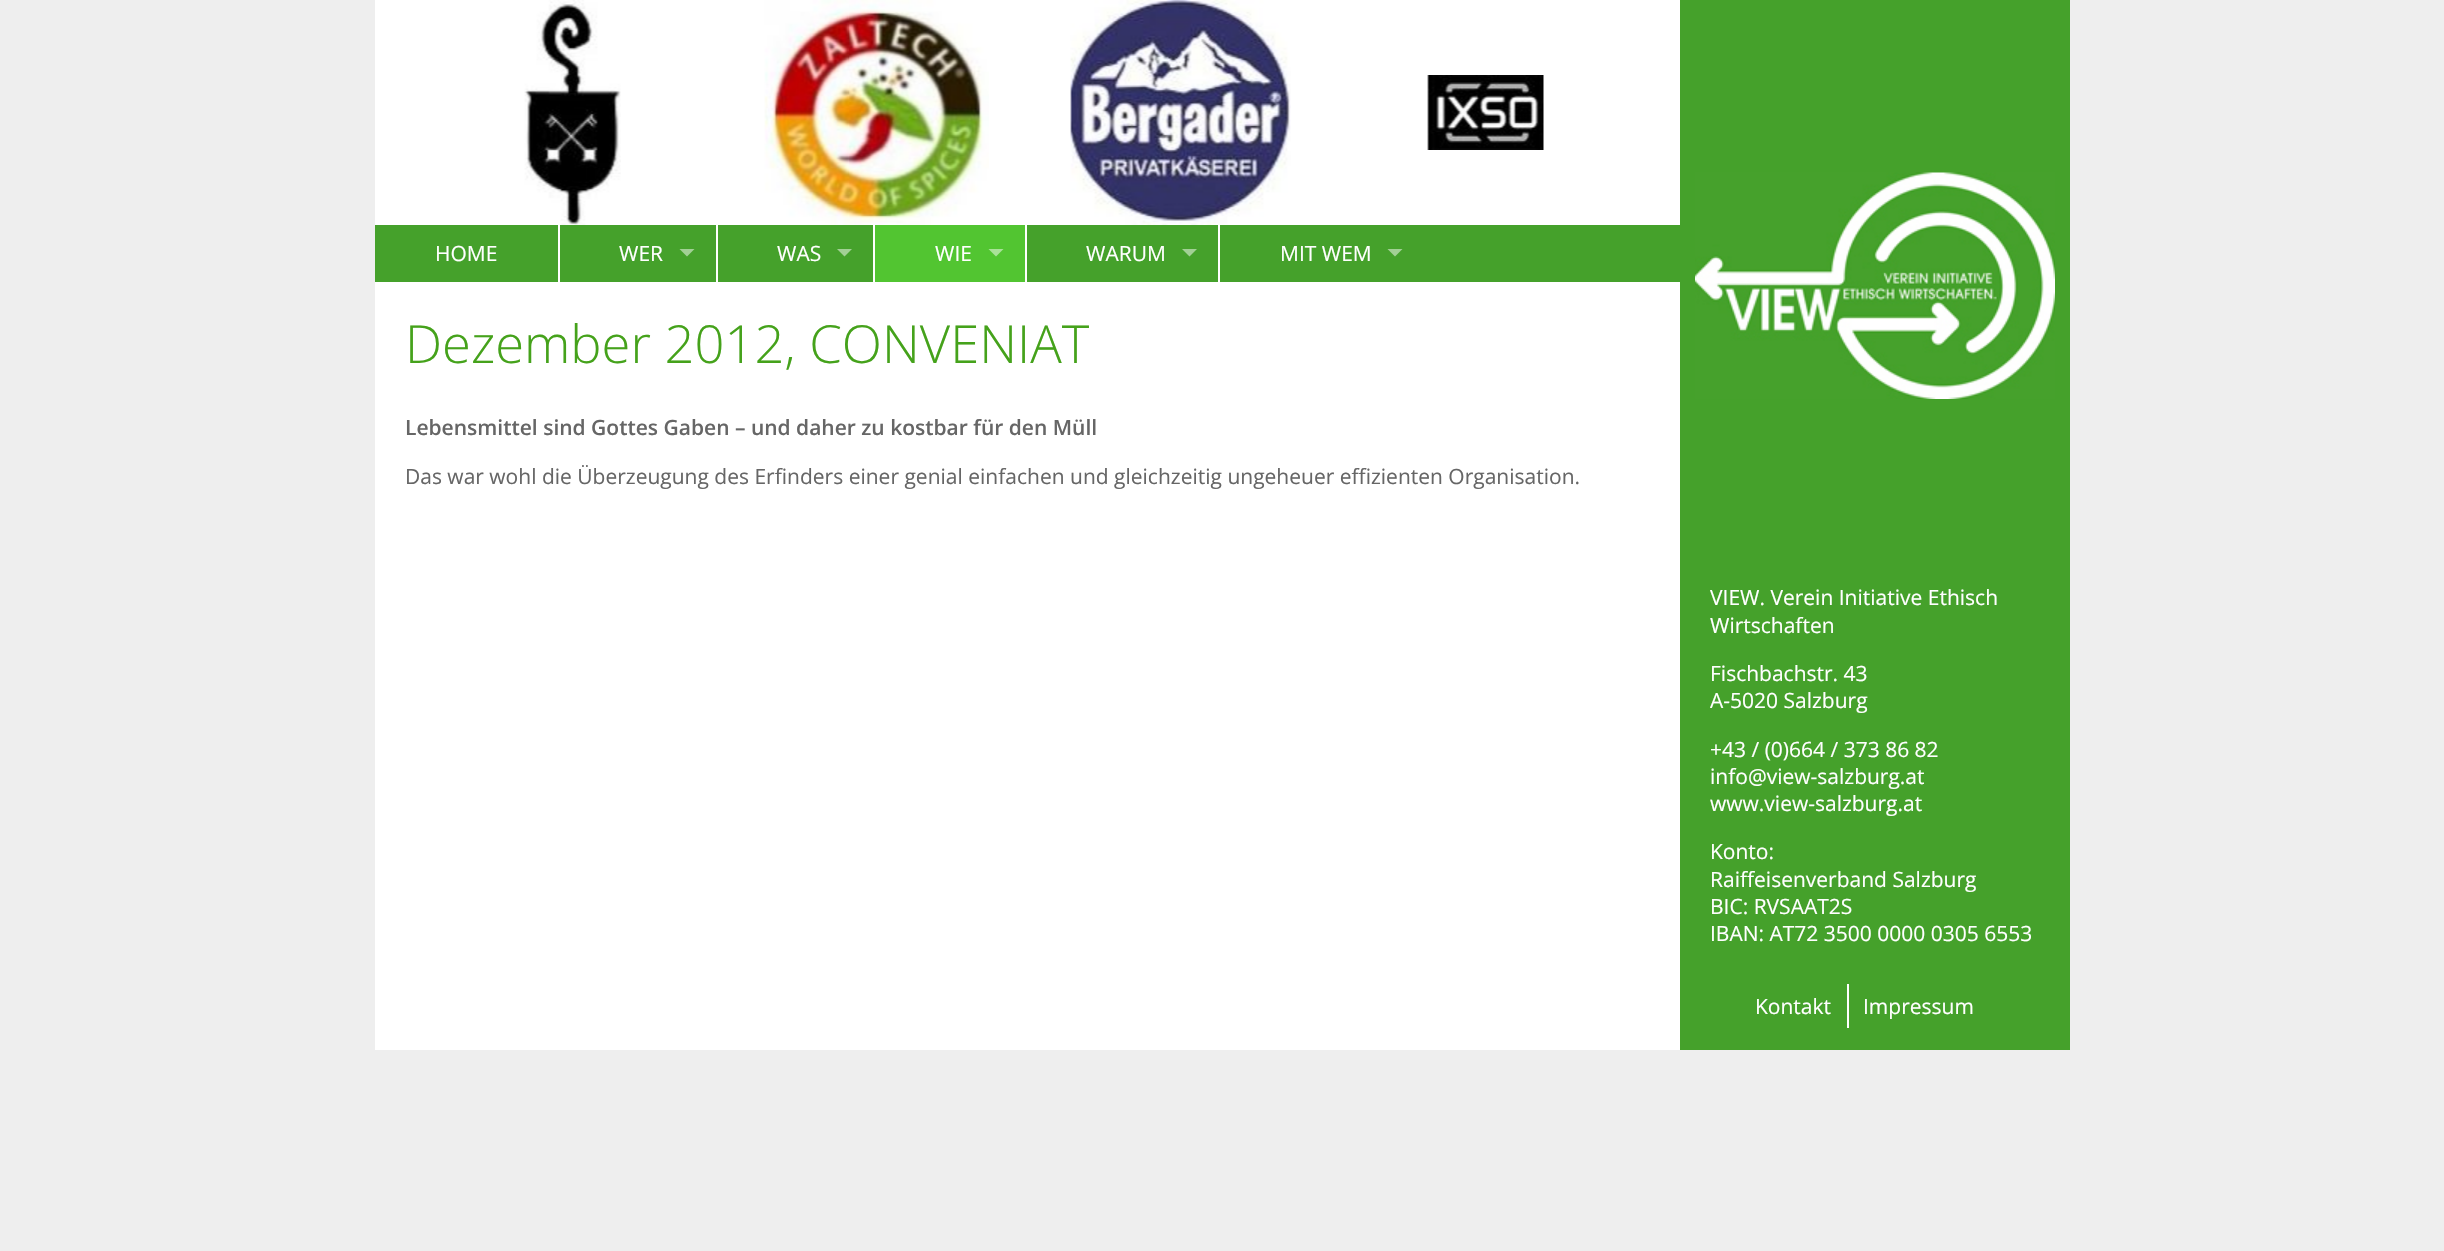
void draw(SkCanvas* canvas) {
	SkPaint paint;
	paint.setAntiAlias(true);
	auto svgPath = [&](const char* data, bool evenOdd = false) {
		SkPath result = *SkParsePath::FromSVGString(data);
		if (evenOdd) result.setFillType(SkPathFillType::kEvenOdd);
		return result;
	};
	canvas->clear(0xffeeeeee);
	paint.setColor(0xffffffff);
	canvas->drawRect(SkRect::MakeXYWH(375, 0, 1305, 1050), paint);
	canvas->drawImageRect(SkImages::DeferredFromEncodedData(SkData::MakeFromFileName("img1.png")), SkRect::MakeXYWH(524, 0, 97, 225), SkSamplingOptions());
	canvas->drawImageRect(SkImages::DeferredFromEncodedData(SkData::MakeFromFileName("img2.png")), SkRect::MakeXYWH(764, 0, 225, 225), SkSamplingOptions());
	canvas->drawImageRect(SkImages::DeferredFromEncodedData(SkData::MakeFromFileName("img3.png")), SkRect::MakeXYWH(1070, 0, 221, 225), SkSamplingOptions());
	canvas->drawImageRect(SkImages::DeferredFromEncodedData(SkData::MakeFromFileName("img4.png")), SkRect::MakeXYWH(1427, 75, 117, 75), SkSamplingOptions());
	paint.setColor(0xff45a12b);
	canvas->drawRect(SkRect::MakeXYWH(375, 225, 1305, 57), paint);
	SkFont f1(fontMgr->matchFamilyStyle("Open Sans", SkFontStyle::Normal()), 21);
	f1.setSubpixel(true);
	paint.setColor(0xffffffff);
	canvas->drawString("HOME", 435, 261, f1, paint);
	canvas->drawRect(SkRect::MakeXYWH(558, 225, 2, 57), paint);
	canvas->drawString("WER", 619, 261, f1, paint);
	paint.setColor(0xffa2d095);
	canvas->drawPath(svgPath("M679.5 249H694.5L687 256.5Z"), paint);
	paint.setColor(0xffffffff);
	canvas->drawRect(SkRect::MakeXYWH(716, 225, 2, 57), paint);
	canvas->drawString("WAS", 777, 261, f1, paint);
	paint.setColor(0xffa2d095);
	canvas->drawPath(svgPath("M837 249H852L844.5 256.5Z"), paint);
	paint.setColor(0xff52c531);
	canvas->drawRect(SkRect::MakeXYWH(875, 225, 150, 57), paint);
	paint.setColor(0xffffffff);
	canvas->drawRect(SkRect::MakeXYWH(873, 225, 2, 57), paint);
	canvas->drawString("WIE", 935, 261, f1, paint);
	paint.setColor(0xffa9e298);
	canvas->drawPath(svgPath("M988.5 249H1003.5L996 256.5Z"), paint);
	paint.setColor(0xffffffff);
	canvas->drawRect(SkRect::MakeXYWH(1025, 225, 2, 57), paint);
	canvas->drawString("WARUM", 1086, 261, f1, paint);
	paint.setColor(0xffa2d095);
	canvas->drawPath(svgPath("M1182 249H1197L1189.5 256.5Z"), paint);
	paint.setColor(0xffffffff);
	canvas->drawRect(SkRect::MakeXYWH(1218, 225, 2, 57), paint);
	canvas->drawString("MIT WEM", 1280, 261, f1, paint);
	paint.setColor(0xffa2d095);
	canvas->drawPath(svgPath("M1387.5 249H1402.5L1395 256.5Z"), paint);
	SkFont f2(fontMgr->matchFamilyStyle("Open Sans", SkFontStyle(300, SkFontStyle::kNormal_Width, SkFontStyle::kUpright_Slant)), 52.5);
	f2.setSubpixel(true);
	paint.setColor(0xff45a21b);
	canvas->drawString("Dezember 2012, CONVENIAT", 405, 363, f2, paint);
	SkFont f3(fontMgr->matchFamilyStyle("Open Sans", SkFontStyle(600, SkFontStyle::kNormal_Width, SkFontStyle::kUpright_Slant)), 21);
	f3.setSubpixel(true);
	paint.setColor(0xff666666);
	canvas->drawString("Lebensmittel sind Gottes Gaben – und daher zu kostbar für den Müll", 405, 435, f3, paint);
	canvas->drawString("Das war wohl die Überzeugung des Erfinders einer genial einfachen und gleichzeitig ungeheuer effizienten Organisation.", 405, 484, f1, paint);
	paint.setColor(0xff45a12b);
	canvas->drawRect(SkRect::MakeXYWH(1680, 0, 390, 1050), paint);
	canvas->drawImageRect(SkImages::DeferredFromEncodedData(SkData::MakeFromFileName("img5.png")), SkRect::MakeXYWH(1695, 172, 360, 227), SkSamplingOptions());
	paint.setColor(0xffffffff);
	canvas->drawString("VIEW. Verein Initiative Ethisch", 1710, 605, f1, paint);
	canvas->drawString("Wirtschaften", 1710, 633, f1, paint);
	canvas->drawString("Fischbachstr. 43", 1710, 681, f1, paint);
	canvas->drawString("A-5020 Salzburg", 1710, 708, f1, paint);
	canvas->drawString("+43 / (0)664 / 373 86 82", 1710, 757, f1, paint);
	canvas->drawString("info@view-salzburg.at", 1710, 784, f1, paint);
	canvas->drawString("www.view-salzburg.at", 1710, 811, f1, paint);
	canvas->drawString("Konto:", 1710, 859, f1, paint);
	canvas->drawString("Raiffeisenverband Salzburg", 1710, 887, f1, paint);
	canvas->drawString("BIC: RVSAAT2S", 1710, 914, f1, paint);
	canvas->drawString("IBAN: AT72 3500 0000 0305 6553", 1710, 941, f1, paint);
	canvas->drawString("Kontakt", 1755, 1014, f1, paint);
	canvas->drawRect(SkRect::MakeXYWH(1847, 984, 2, 44), paint);
	canvas->drawString("Impressum", 1863, 1014, f1, paint);
}
